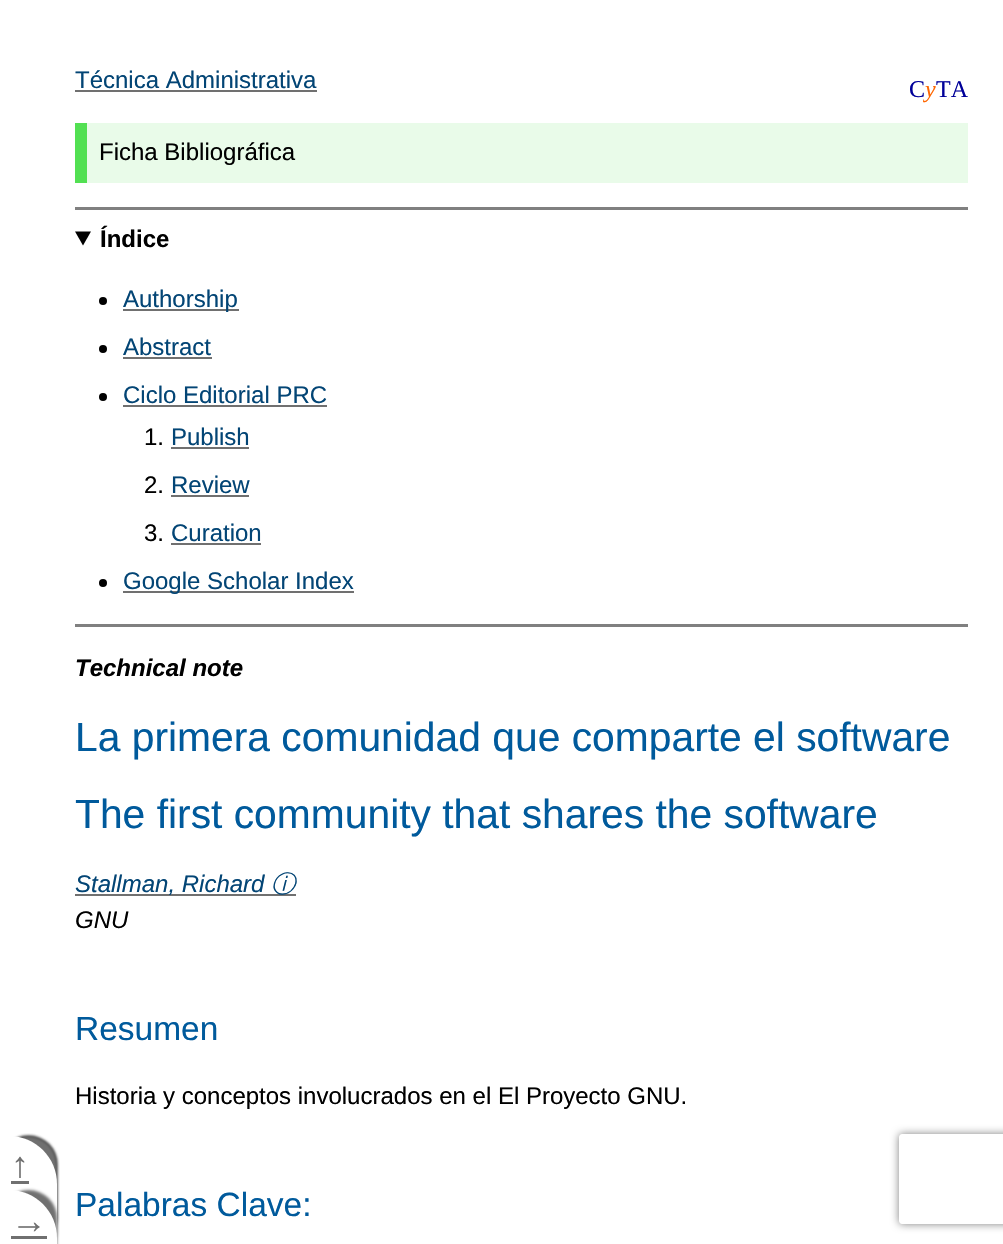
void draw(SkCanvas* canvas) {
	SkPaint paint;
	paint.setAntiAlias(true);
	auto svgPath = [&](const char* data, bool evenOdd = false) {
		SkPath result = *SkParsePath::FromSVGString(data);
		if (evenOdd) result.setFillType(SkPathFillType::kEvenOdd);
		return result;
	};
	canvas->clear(0xffffffff);
	SkFont f1(fontMgr->matchFamilyStyle("Liberation Sans", SkFontStyle::Normal()), 24);
	f1.setSubpixel(true);
	paint.setColor(0xff034575);
	canvas->drawString("Técnica Administrativa", 75, 88, f1, paint);
	paint.setColor(0xff707070);
	canvas->drawRect(SkRect::MakeXYWH(75, 90, 242, 2), paint);
	SkFont f2(fontMgr->matchFamilyStyle("Liberation Serif", SkFontStyle::Normal()), 24);
	f2.setSubpixel(true);
	paint.setColor(0xff000099);
	canvas->drawString("C", 909, 97, f2, paint);
	SkFont f3(fontMgr->matchFamilyStyle("Liberation Serif", SkFontStyle::Italic()), 24);
	f3.setSubpixel(true);
	paint.setColor(0xffff6600);
	canvas->drawString("y", 925, 97, f3, paint);
	paint.setColor(0xff000099);
	canvas->drawString("TA", 936, 97, f2, paint);
	paint.setColor(0xffe9fbe9);
	canvas->drawRect(SkRect::MakeXYWH(87, 123, 881, 60), paint);
	paint.setColor(0xff52e052);
	canvas->drawRect(SkRect::MakeXYWH(75, 123, 12, 60), paint);
	paint.setColor(0xff000000);
	canvas->drawString("Ficha Bibliográfica", 99, 160, f1, paint);
	paint.setColor(0xff808080);
	canvas->drawRect(SkRect::MakeXYWH(75, 207, 893, 3), paint);
	paint.setColor(0xff000000);
	canvas->drawPath(svgPath("M75 231.5H91L83 245.5Z"), paint);
	SkFont f4(fontMgr->matchFamilyStyle("Liberation Sans", SkFontStyle::Bold()), 24);
	f4.setSubpixel(true);
	canvas->drawString("Índice", 100, 247, f4, paint);
	canvas->drawCircle(103, 301, 4, paint);
	paint.setColor(0xff707070);
	canvas->drawRect(SkRect::MakeXYWH(123, 309, 116, 2), paint);
	paint.setColor(0xff034575);
	canvas->drawString("Authorship", 123, 307, f1, paint);
	paint.setColor(0xff000000);
	canvas->drawCircle(103, 349, 4, paint);
	paint.setColor(0xff034575);
	canvas->drawString("Abstract", 123, 355, f1, paint);
	paint.setColor(0xff707070);
	canvas->drawRect(SkRect::MakeXYWH(123, 357, 89, 2), paint);
	paint.setColor(0xff000000);
	canvas->drawCircle(103, 397, 4, paint);
	paint.setColor(0xff034575);
	canvas->drawString("Ciclo Editorial PRC", 123, 403, f1, paint);
	paint.setColor(0xff707070);
	canvas->drawRect(SkRect::MakeXYWH(123, 405, 204, 2), paint);
	paint.setColor(0xff000000);
	canvas->drawString("1.", 144, 445, f1, paint);
	paint.setColor(0xff034575);
	canvas->drawString("Publish", 171, 445, f1, paint);
	paint.setColor(0xff707070);
	canvas->drawRect(SkRect::MakeXYWH(171, 447, 78, 2), paint);
	paint.setColor(0xff000000);
	canvas->drawString("2.", 144, 493, f1, paint);
	paint.setColor(0xff034575);
	canvas->drawString("Review", 171, 493, f1, paint);
	paint.setColor(0xff707070);
	canvas->drawRect(SkRect::MakeXYWH(171, 495, 78, 2), paint);
	paint.setColor(0xff000000);
	canvas->drawString("3.", 144, 541, f1, paint);
	paint.setColor(0xff034575);
	canvas->drawString("Curation", 171, 541, f1, paint);
	paint.setColor(0xff707070);
	canvas->drawRect(SkRect::MakeXYWH(171, 543, 90, 2), paint);
	paint.setColor(0xff000000);
	canvas->drawCircle(103, 583, 4, paint);
	paint.setColor(0xff707070);
	canvas->drawRect(SkRect::MakeXYWH(123, 591, 231, 2), paint);
	paint.setColor(0xff034575);
	canvas->drawString("Google Scholar Index", 123, 589, f1, paint);
	paint.setColor(0xff808080);
	canvas->drawRect(SkRect::MakeXYWH(75, 624, 893, 3), paint);
	SkFont f5(fontMgr->matchFamilyStyle("Liberation Sans", SkFontStyle::BoldItalic()), 24);
	f5.setSubpixel(true);
	paint.setColor(0xff000000);
	canvas->drawString("Technical note", 75, 676, f5, paint);
	SkFont f6(fontMgr->matchFamilyStyle("Liberation Sans", SkFontStyle::Normal()), 40.8);
	f6.setSubpixel(true);
	paint.setColor(0xff005a9c);
	canvas->drawString("La primera comunidad que comparte el software", 75, 751, f6, paint);
	canvas->drawString("The first community that shares the software", 75, 828, f6, paint);
	paint.setColor(0xff707070);
	canvas->drawRect(SkRect::MakeXYWH(75, 894, 221, 2), paint);
	SkFont f7(fontMgr->matchFamilyStyle("Liberation Sans", SkFontStyle::Italic()), 24);
	f7.setSubpixel(true);
	paint.setColor(0xff034575);
	canvas->drawString("Stallman, Richard", 75, 892, f7, paint);
	SkFont f8(fontMgr->matchFamilyStyle("WenQuanYi Zen Hei", SkFontStyle(500, SkFontStyle::kNormal_Width, SkFontStyle::kItalic_Slant)), 24);
	f8.setSubpixel(true);
	canvas->drawString("ⓘ", 271, 892, f8, paint);
	paint.setColor(0xff000000);
	canvas->drawString("GNU", 75, 928, f7, paint);
	SkFont f9(fontMgr->matchFamilyStyle("Liberation Sans", SkFontStyle::Normal()), 33.5);
	f9.setSubpixel(true);
	paint.setColor(0xff005a9c);
	canvas->drawString("Resumen", 75, 1040, f9, paint);
	paint.setColor(0xff000000);
	canvas->drawString("Historia y conceptos involucrados en el El Proyecto GNU.", 75, 1104, f1, paint);
	paint.setColor(0xff005a9c);
	canvas->drawString("Palabras Clave:", 75, 1216, f9, paint);
	paint.setColor(0xff000000);
	paint.setMaskFilter(SkMaskFilter::MakeBlur(kNormal_SkBlurStyle, 1.5));
	canvas->drawRoundRect(SkRect::MakeXYWH(0, 1136, 57, 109), 48, 48, paint);
	paint.setMaskFilter(nullptr);
	paint.setColor(0xff707070);
	paint.setMaskFilter(SkMaskFilter::MakeBlur(kNormal_SkBlurStyle, 1.5));
	canvas->drawRoundRect(SkRect::MakeXYWH(0, 1136, 57, 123), 48, 48, paint);
	paint.setMaskFilter(nullptr);
	paint.setColor(0xffffffff);
	canvas->drawPath(svgPath("M0 1136H9C35.5 1136 57 1157.5 57 1184V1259H0Z"), paint);
	SkFont f10(fontMgr->matchFamilyStyle("Liberation Sans", SkFontStyle::Normal()), 36);
	f10.setSubpixel(true);
	paint.setColor(0xff707070);
	canvas->drawString("↑", 11, 1177, f10, paint);
	canvas->drawRect(SkRect::MakeXYWH(11, 1181, 18, 3), paint);
	paint.setMaskFilter(SkMaskFilter::MakeBlur(kNormal_SkBlurStyle, 1.5));
	canvas->drawRoundRect(SkRect::MakeXYWH(0, 1190, 57, 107), 48, 48, paint);
	paint.setMaskFilter(nullptr);
	paint.setColor(0xffffffff);
	canvas->drawPath(svgPath("M0 1190H9C35.5 1190 57 1211.5 57 1238V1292H0Z"), paint);
	paint.setColor(0xff707070);
	canvas->drawString("→", 11, 1233, f10, paint);
	canvas->drawRect(SkRect::MakeXYWH(11, 1236, 36, 3), paint);
	canvas->save();
	canvas->clipPath(svgPath("M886 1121H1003V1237H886ZM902 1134H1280C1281.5 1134 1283 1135.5 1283 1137V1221C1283 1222.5 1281.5 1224 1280 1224H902C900.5 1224 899 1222.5 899 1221V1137C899 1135.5 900.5 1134 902 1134Z", true), true);
	paint.setColor(0xff808080);
	paint.setMaskFilter(SkMaskFilter::MakeBlur(kNormal_SkBlurStyle, 4));
	canvas->drawRoundRect(SkRect::MakeXYWH(899, 1134, 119, 90), 3, 3, paint);
	paint.setMaskFilter(nullptr);
	canvas->restore();
}
